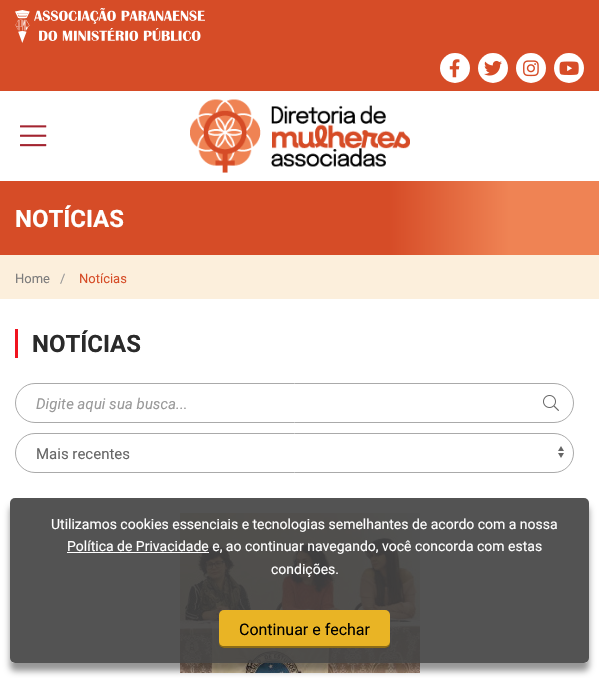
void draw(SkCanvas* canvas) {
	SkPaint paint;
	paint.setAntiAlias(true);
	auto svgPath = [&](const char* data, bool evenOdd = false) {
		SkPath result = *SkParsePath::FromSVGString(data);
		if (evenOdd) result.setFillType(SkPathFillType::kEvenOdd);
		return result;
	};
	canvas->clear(0xffffffff);
	paint.setColor(0xffd64c27);
	canvas->drawRect(SkRect::MakeXYWH(0, 0, 599, 91), paint);
	canvas->drawImageRect(SkImages::DeferredFromEncodedData(SkData::MakeFromFileName("img1.png")), SkRect::MakeXYWH(15, 8, 190, 35), SkSamplingOptions());
	paint.setColor(0xffffffff);
	canvas->drawCircle(455, 68, 15, paint);
	canvas->drawImageRect(SkImages::DeferredFromEncodedData(SkData::MakeFromFileName("img2.png")), SkRect::MakeXYWH(449, 59, 11, 19), SkSamplingOptions());
	canvas->drawCircle(493, 68, 15, paint);
	canvas->drawImageRect(SkImages::DeferredFromEncodedData(SkData::MakeFromFileName("img3.png")), SkRect::MakeXYWH(484, 60, 18, 16), SkSamplingOptions());
	canvas->drawCircle(531, 68, 15, paint);
	canvas->drawImageRect(SkImages::DeferredFromEncodedData(SkData::MakeFromFileName("img4.png")), SkRect::MakeXYWH(523, 60, 16, 17), SkSamplingOptions());
	canvas->drawCircle(569, 68, 15, paint);
	canvas->drawImageRect(SkImages::DeferredFromEncodedData(SkData::MakeFromFileName("img5.png")), SkRect::MakeXYWH(559, 61, 20, 14), SkSamplingOptions());
	canvas->drawImageRect(SkImages::DeferredFromEncodedData(SkData::MakeFromFileName("img6.png")), SkRect::MakeXYWH(20, 125, 27, 22), SkSamplingOptions());
	canvas->drawImageRect(SkImages::DeferredFromEncodedData(SkData::MakeFromFileName("img7.png")), SkRect::MakeXYWH(190, 99, 220, 74), SkSamplingOptions());
	{
		const SkColor colors[] = {0xffd64c27, 0xffef8354};
		const float stops[] = {0.65, 0.85};
		const SkPoint ends[] = {{0, 218}, {599, 218}};
		paint.setShader(SkGradientShader::MakeLinear(ends, colors, stops, 2, SkTileMode::kClamp));
		paint.setAlpha(255);
	}
	canvas->drawRect(SkRect::MakeXYWH(0, 181, 599, 74), paint);
	SkFont f1(fontMgr->matchFamilyStyle("Roboto", SkFontStyle::Bold()), 24);
	f1.setSubpixel(true);
	paint.setShader(nullptr);
	paint.setColor(0xffffffff);
	canvas->drawString("NOTÍCIAS", 15, 227, f1, paint);
	paint.setColor(0xfffcefdc);
	canvas->drawRect(SkRect::MakeXYWH(0, 255, 599, 44), paint);
	SkFont f2(fontMgr->matchFamilyStyle("Roboto", SkFontStyle::Normal()), 13);
	f2.setSubpixel(true);
	paint.setColor(0xff7c7c7c);
	canvas->drawString("Home", 15, 283, f2, paint);
	paint.setColor(0xff999999);
	canvas->drawString("/", 60, 283, f2, paint);
	paint.setColor(0xffd64c27);
	canvas->drawString("Notícias", 79, 283, f2, paint);
	paint.setColor(0xfff0131f);
	canvas->drawRect(SkRect::MakeXYWH(15, 329, 3, 29), paint);
	paint.setColor(0xff2a2a2a);
	canvas->drawString("NOTÍCIAS", 32, 352, f1, paint);
	paint.setStroke(true);
	paint.setStrokeWidth(1);
	paint.setColor(0xffaaaaaa);
	canvas->drawRoundRect(SkRect::MakeXYWH(15.5, 383.5, 558, 39), 19.5, 19.5, paint);
	SkFont f3(fontMgr->matchFamilyStyle("Roboto", SkFontStyle::Italic()), 15);
	f3.setSubpixel(true);
	paint.setStroke(false);
	paint.setColor(0xff999999);
	canvas->drawString("Digite aqui sua busca...", 36, 409, f3, paint);
	canvas->drawImageRect(SkImages::DeferredFromEncodedData(SkData::MakeFromFileName("img8.png")), SkRect::MakeXYWH(543, 395, 16, 16), SkSamplingOptions());
	canvas->drawImageRect(SkImages::DeferredFromEncodedData(SkData::MakeFromFileName("img9.png")), SkRect::MakeXYWH(558, 446, 6, 12), SkSamplingOptions());
	paint.setStroke(true);
	paint.setColor(0xffaaaaaa);
	canvas->drawRoundRect(SkRect::MakeXYWH(15.5, 433.5, 558, 39), 19.5, 19.5, paint);
	SkFont f4(fontMgr->matchFamilyStyle("Roboto", SkFontStyle::Normal()), 15);
	f4.setSubpixel(true);
	paint.setStroke(false);
	paint.setColor(0xff666666);
	canvas->drawString("Mais recentes", 36, 459, f4, paint);
	canvas->drawImageRect(SkImages::DeferredFromEncodedData(SkData::MakeFromFileName("img10.png")), SkRect::MakeXYWH(180, 513, 240, 160), SkSamplingOptions());
	canvas->save();
	canvas->clipPath(svgPath("M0 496H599V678H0ZM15 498H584C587 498 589 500 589 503V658C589 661 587 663 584 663H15C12 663 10 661 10 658V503C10 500 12 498 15 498Z", true), true);
	paint.setColor(0x69000000);
	paint.setMaskFilter(SkMaskFilter::MakeBlur(kNormal_SkBlurStyle, 3));
	canvas->drawRoundRect(SkRect::MakeXYWH(10, 506, 579, 165), 5, 5, paint);
	paint.setMaskFilter(nullptr);
	canvas->restore();
	paint.setColor(0xe6404040);
	canvas->drawRoundRect(SkRect::MakeXYWH(10, 498, 579, 165), 5, 5, paint);
	SkFont f5(fontMgr->matchFamilyStyle("Roboto", SkFontStyle::Normal()), 14);
	f5.setSubpixel(true);
	paint.setColor(0xffffffff);
	canvas->drawString("Utilizamos cookies essenciais e tecnologias semelhantes de acordo com a nossa", 51, 529, f5, paint);
	canvas->drawRect(SkRect::MakeXYWH(67, 552, 142, 1), paint);
	canvas->drawString("Política de Privacidade e, ao continuar navegando, você concorda com estas", 67, 551, f5, paint);
	canvas->drawString("condições.", 271, 574, f5, paint);
	paint.setColor(0xffe9b425);
	canvas->drawRoundRect(SkRect::MakeXYWH(219, 610, 171, 38), 5, 5, paint);
	paint.setColor(0x66000000);
	canvas->drawPath(svgPath("M219 641V643C219 646 221 648 224 648H385C388 648 390 646 390 643V641C390 644 388 646 385 646H224C221 646 219 644 219 641Z"), paint);
	SkFont f6(fontMgr->matchFamilyStyle("Roboto", SkFontStyle::Normal()), 16);
	f6.setSubpixel(true);
	paint.setColor(0xff000000);
	canvas->drawString("Continuar e fechar", 239, 635, f6, paint);
}
